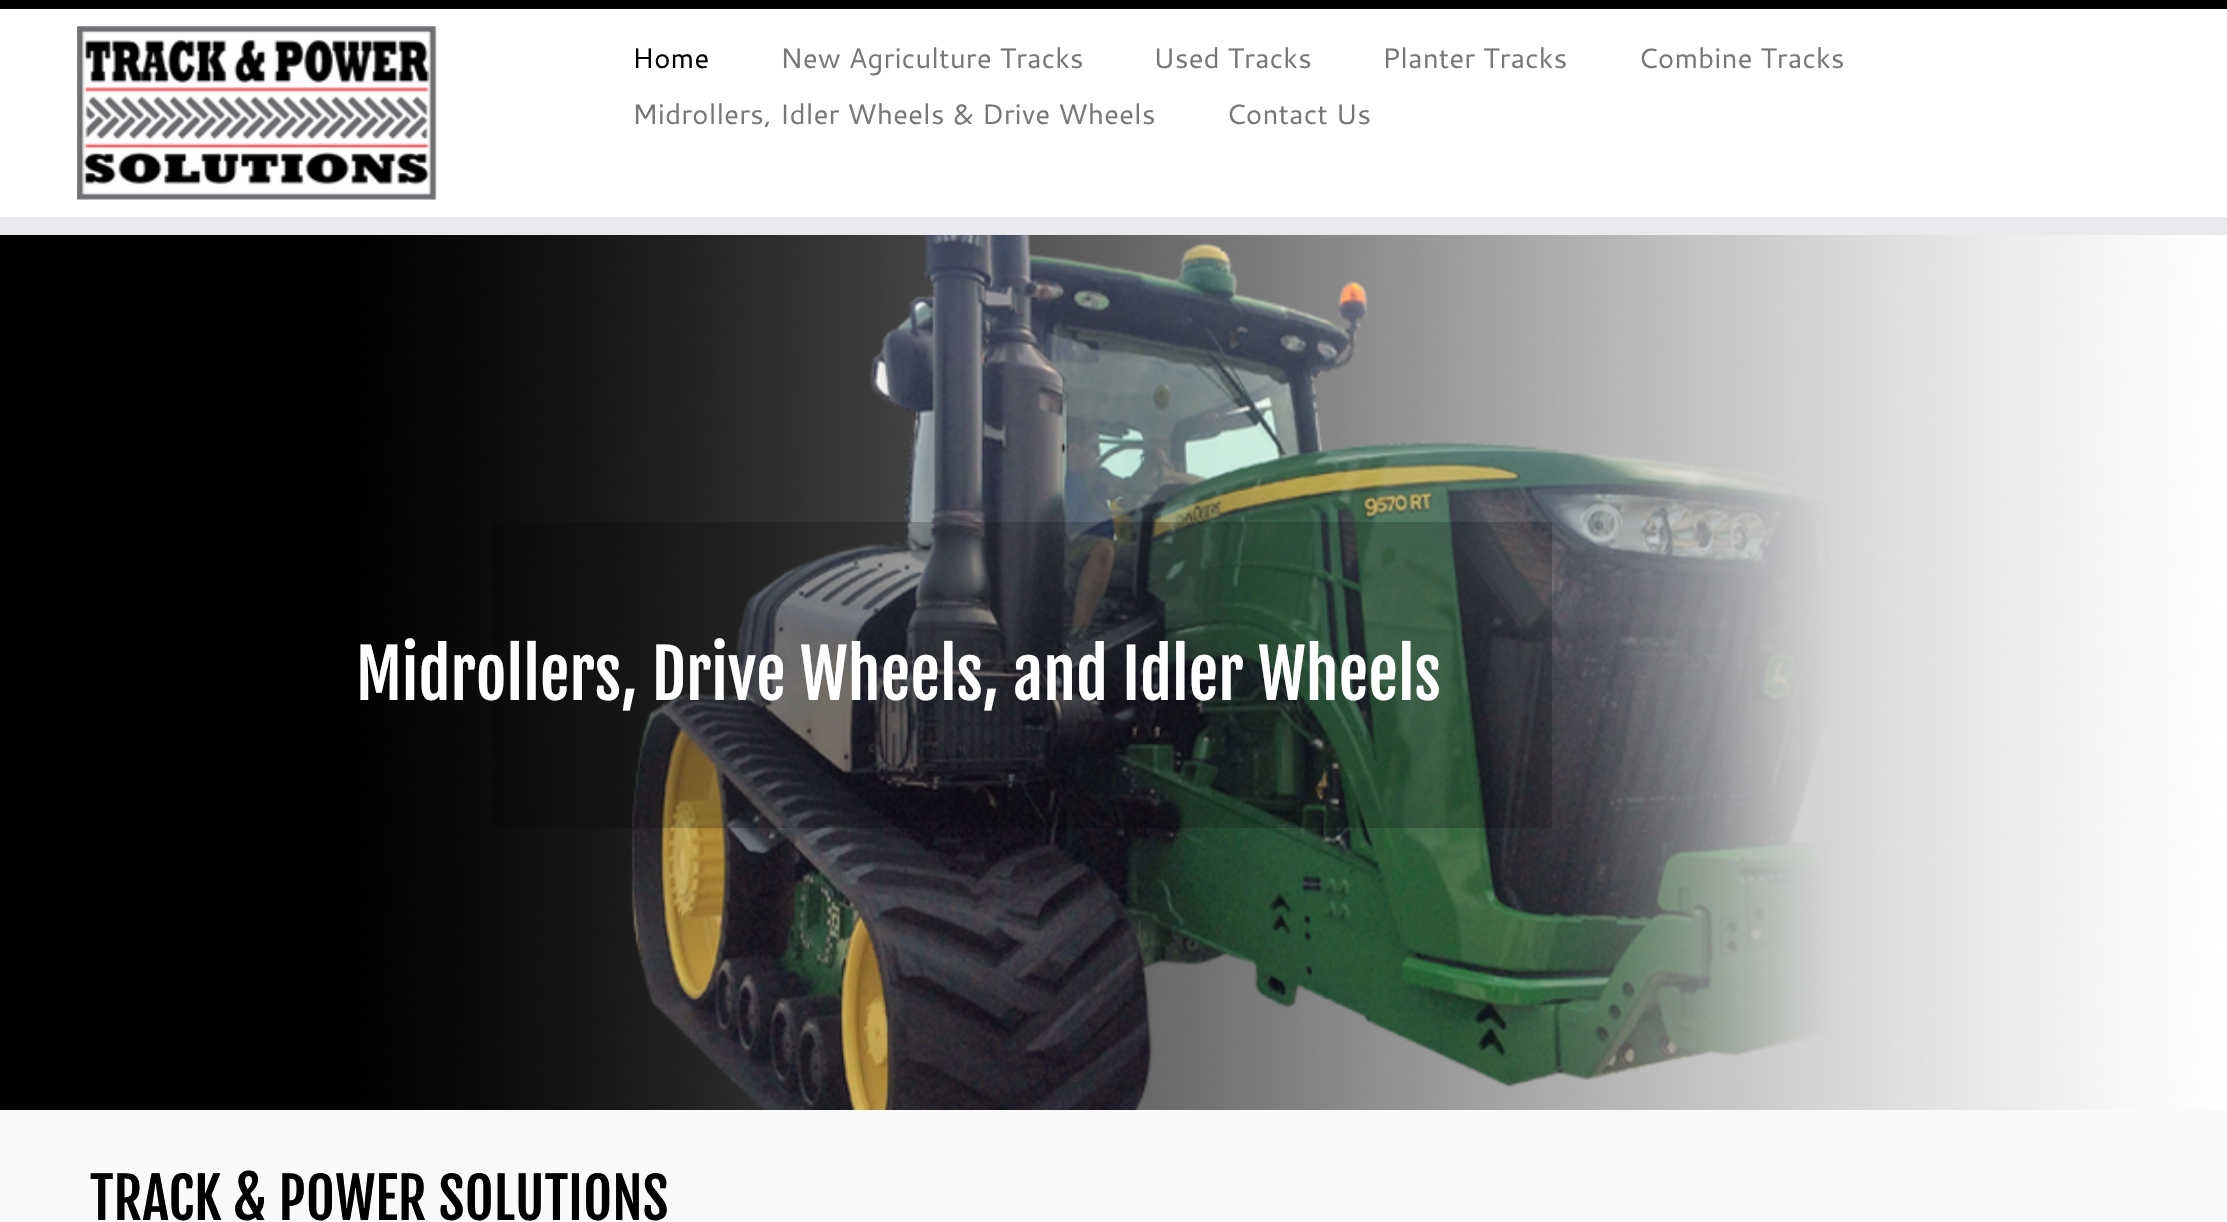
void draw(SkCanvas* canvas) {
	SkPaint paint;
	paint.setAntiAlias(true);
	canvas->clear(0xfffafafa);
	paint.setColor(0xffffffff);
	canvas->drawRect(SkRect::MakeXYWH(0, 9, 2227, 208), paint);
	paint.setColor(0xff000000);
	canvas->drawRect(SkRect::MakeXYWH(0, 0, 2227, 9), paint);
	paint.setColor(0xffe9eaee);
	canvas->drawRect(SkRect::MakeXYWH(0, 217, 2227, 18), paint);
	canvas->drawImageRect(SkImages::DeferredFromEncodedData(SkData::MakeFromFileName("img1.png")), SkRect::MakeXYWH(77, 26, 360, 174), SkSamplingOptions());
	SkFont f1(fontMgr->matchFamilyStyle("Cantarell", SkFontStyle::Normal()), 28);
	f1.setSubpixel(true);
	paint.setColor(0xff000000);
	canvas->drawString("Home", 632, 68, f1, paint);
	paint.setColor(0xff777777);
	canvas->drawString("New Agriculture Tracks", 780, 68, f1, paint);
	canvas->drawString("Used Tracks", 1153, 68, f1, paint);
	canvas->drawString("Planter Tracks", 1382, 68, f1, paint);
	canvas->drawString("Combine Tracks", 1638, 68, f1, paint);
	canvas->drawString("Midrollers, Idler Wheels & Drive Wheels", 632, 124, f1, paint);
	canvas->drawString("Contact Us", 1226, 124, f1, paint);
	canvas->drawImageRect(SkImages::DeferredFromEncodedData(SkData::MakeFromFileName("img2.png")), SkRect::MakeXYWH(0, 235, 2227, 875), SkSamplingOptions());
	paint.setColor(0x33000000);
	canvas->drawRect(SkRect::MakeXYWH(492, 522, 1060, 306), paint);
	SkFont f2(fontMgr->matchFamilyStyle("Fjalla One", SkFontStyle::Normal()), 66.5);
	f2.setSubpixel(true);
	paint.setColor(0xffffffff);
	canvas->drawString("Midrollers, Drive Wheels, and Idler Wheels", 356, 700, f2, paint);
	SkFont f3(fontMgr->matchFamilyStyle("Fjalla One", SkFontStyle::Normal()), 56);
	f3.setSubpixel(true);
	paint.setColor(0xff000000);
	canvas->drawString("TRACK & POWER SOLUTIONS", 90, 1220, f3, paint);
}
